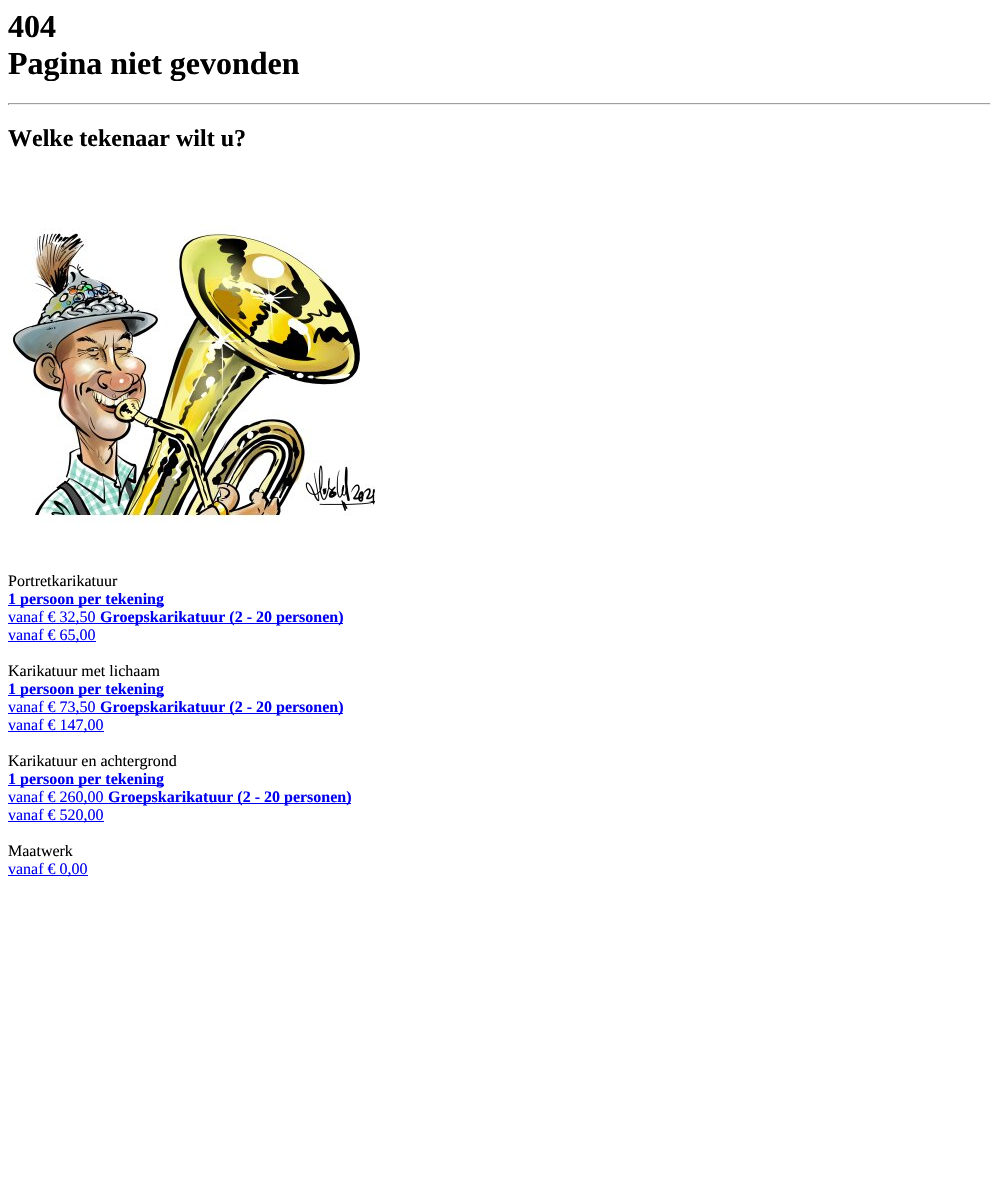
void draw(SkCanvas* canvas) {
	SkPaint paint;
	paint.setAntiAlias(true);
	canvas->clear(0xffffffff);
	SkFont f1(fontMgr->matchFamilyStyle("Liberation Serif", SkFontStyle::Bold()), 32);
	f1.setSubpixel(true);
	paint.setColor(0xff000000);
	canvas->drawString("404", 8, 37, f1, paint);
	canvas->drawString("Pagina niet gevonden", 8, 74, f1, paint);
	paint.setColor(0xff9f9f9f);
	canvas->drawRect(SkRect::MakeXYWH(8, 103, 983, 1), paint);
	paint.setColor(0xffeeeeee);
	canvas->drawRect(SkRect::MakeXYWH(990, 103, 1, 2), paint);
	canvas->drawRect(SkRect::MakeXYWH(8, 104, 983, 1), paint);
	paint.setColor(0xff9f9f9f);
	canvas->drawRect(SkRect::MakeXYWH(8, 103, 1, 2), paint);
	SkFont f2(fontMgr->matchFamilyStyle("Liberation Serif", SkFontStyle::Bold()), 24);
	f2.setSubpixel(true);
	paint.setColor(0xff000000);
	canvas->drawString("Welke tekenaar wilt u?", 8, 146, f2, paint);
	canvas->drawImageRect(SkImages::DeferredFromEncodedData(SkData::MakeFromFileName("img1.png")), SkRect::MakeXYWH(8, 224, 368, 300), SkSamplingOptions());
	SkFont f3(fontMgr->matchFamilyStyle("Liberation Serif", SkFontStyle::Normal()), 16);
	f3.setSubpixel(true);
	canvas->drawString("Portretkarikatuur", 8, 586, f3, paint);
	paint.setColor(0xff0000ee);
	canvas->drawRect(SkRect::MakeXYWH(8, 605, 156, 1), paint);
	SkFont f4(fontMgr->matchFamilyStyle("Liberation Serif", SkFontStyle::Bold()), 16);
	f4.setSubpixel(true);
	canvas->drawString("1 persoon per tekening", 8, 604, f4, paint);
	canvas->drawRect(SkRect::MakeXYWH(8, 623, 335, 1), paint);
	canvas->drawString("vanaf € 32,50", 8, 622, f3, paint);
	canvas->drawString("Groepskarikatuur (2 - 20 personen)", 100, 622, f4, paint);
	canvas->drawRect(SkRect::MakeXYWH(8, 641, 88, 1), paint);
	canvas->drawString("vanaf € 65,00", 8, 640, f3, paint);
	paint.setColor(0xff000000);
	canvas->drawString("Karikatuur met lichaam", 8, 676, f3, paint);
	paint.setColor(0xff0000ee);
	canvas->drawRect(SkRect::MakeXYWH(8, 695, 156, 1), paint);
	canvas->drawString("1 persoon per tekening", 8, 694, f4, paint);
	canvas->drawRect(SkRect::MakeXYWH(8, 713, 335, 1), paint);
	canvas->drawString("vanaf € 73,50", 8, 712, f3, paint);
	canvas->drawString("Groepskarikatuur (2 - 20 personen)", 100, 712, f4, paint);
	canvas->drawRect(SkRect::MakeXYWH(8, 731, 96, 1), paint);
	canvas->drawString("vanaf € 147,00", 8, 730, f3, paint);
	paint.setColor(0xff000000);
	canvas->drawString("Karikatuur en achtergrond", 8, 766, f3, paint);
	paint.setColor(0xff0000ee);
	canvas->drawRect(SkRect::MakeXYWH(8, 785, 156, 1), paint);
	canvas->drawString("1 persoon per tekening", 8, 784, f4, paint);
	canvas->drawRect(SkRect::MakeXYWH(8, 803, 343, 1), paint);
	canvas->drawString("vanaf € 260,00", 8, 802, f3, paint);
	canvas->drawString("Groepskarikatuur (2 - 20 personen)", 108, 802, f4, paint);
	canvas->drawRect(SkRect::MakeXYWH(8, 821, 96, 1), paint);
	canvas->drawString("vanaf € 520,00", 8, 820, f3, paint);
	paint.setColor(0xff000000);
	canvas->drawString("Maatwerk", 8, 856, f3, paint);
	paint.setColor(0xff0000ee);
	canvas->drawRect(SkRect::MakeXYWH(8, 875, 80, 1), paint);
	canvas->drawString("vanaf € 0,00", 8, 874, f3, paint);
}
